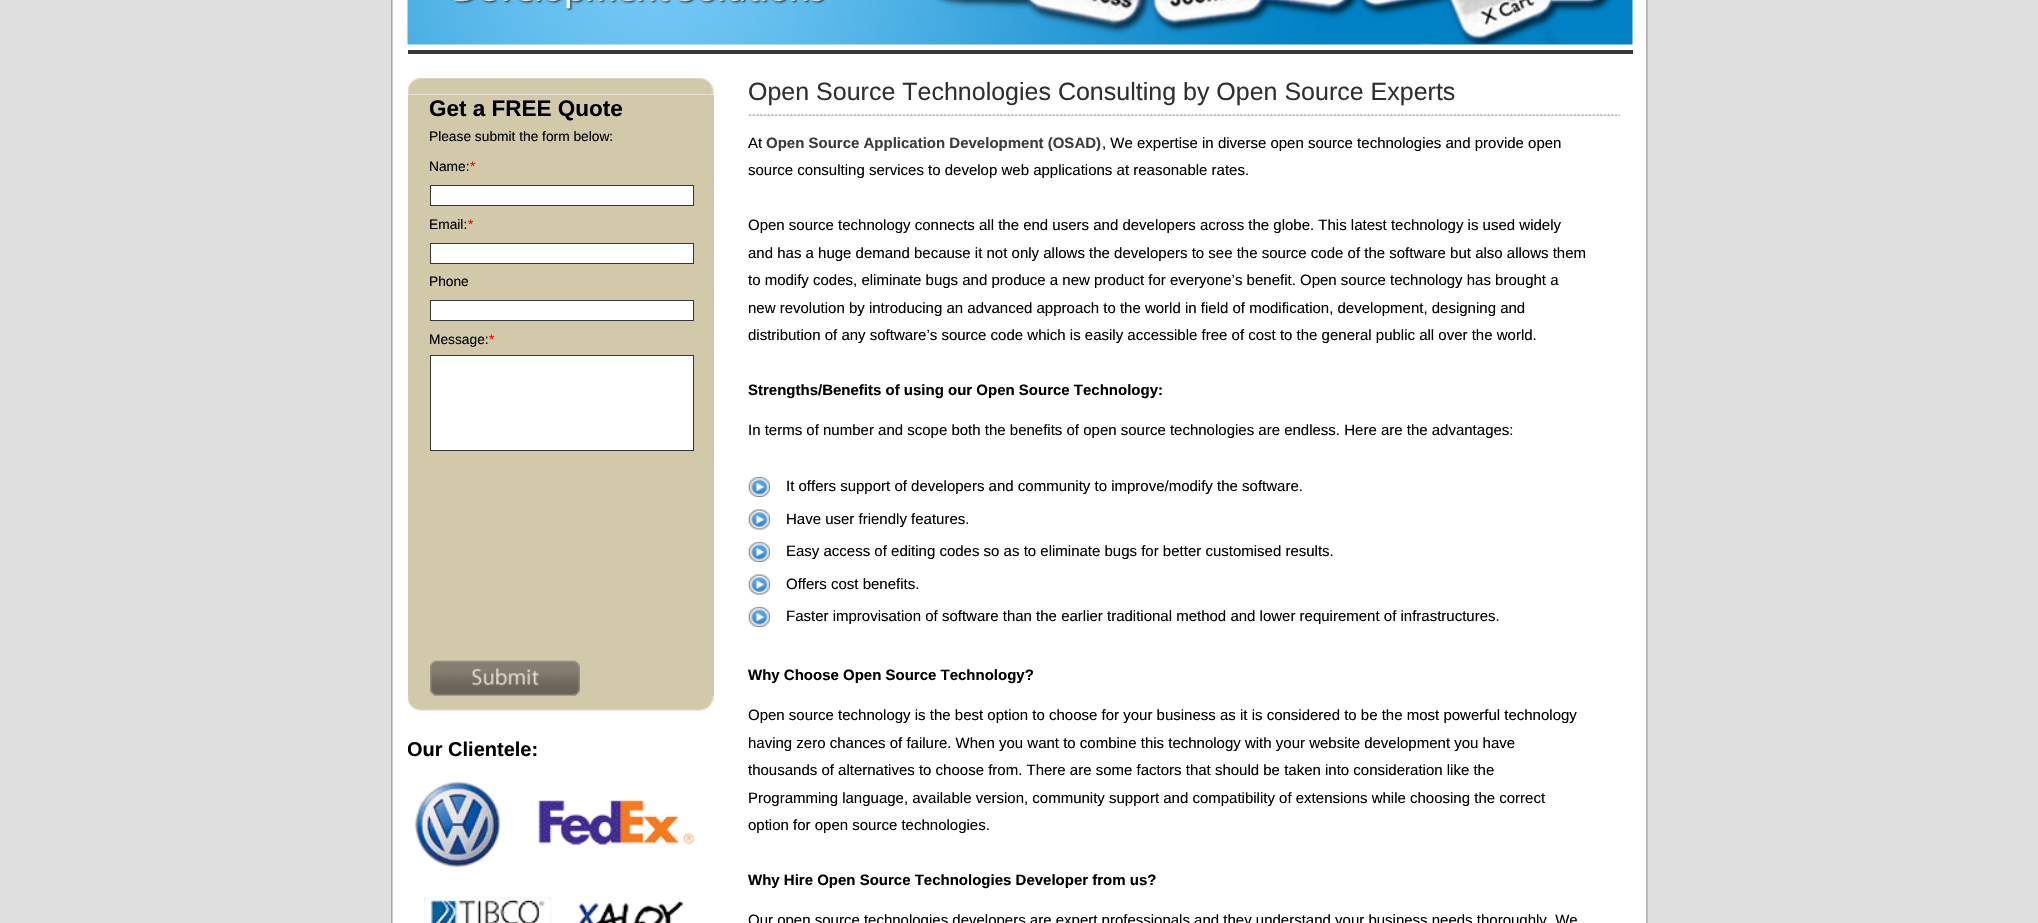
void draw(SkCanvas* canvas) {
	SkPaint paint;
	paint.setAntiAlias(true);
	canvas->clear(0xffdfdfdf);
	canvas->drawImageRect(SkImages::DeferredFromEncodedData(SkData::MakeFromFileName("img1.png")), SkRect::MakeXYWH(391, 0, 1257, 923), SkSamplingOptions());
	paint.setColor(0xff373737);
	canvas->drawRect(SkRect::MakeXYWH(408, 50, 1225, 4), paint);
	canvas->drawImageRect(SkImages::DeferredFromEncodedData(SkData::MakeFromFileName("img2.png")), SkRect::MakeXYWH(407, 0, 1226, 45), SkSamplingOptions());
	canvas->drawImageRect(SkImages::DeferredFromEncodedData(SkData::MakeFromFileName("img3.png")), SkRect::MakeXYWH(407, 78, 307, 17), SkSamplingOptions());
	paint.setColor(0xffd2c9aa);
	canvas->drawRect(SkRect::MakeXYWH(408, 95, 306, 601), paint);
	SkFont f1(fontMgr->matchFamilyStyle("Liberation Sans", SkFontStyle::Bold()), 22.5);
	f1.setSubpixel(true);
	paint.setColor(0xff000000);
	canvas->drawString("Get a FREE Quote", 429, 116, f1, paint);
	SkFont f2(fontMgr->matchFamilyStyle("Liberation Sans", SkFontStyle::Normal()), 13.75);
	f2.setSubpixel(true);
	canvas->drawString("Please submit the form below:", 429, 141, f2, paint);
	canvas->drawString("Name:", 429, 171, f2, paint);
	paint.setColor(0xffff0000);
	canvas->drawString("*", 470, 171, f2, paint);
	paint.setColor(0xffffffff);
	canvas->drawRect(SkRect::MakeXYWH(430.5, 185.5, 263, 20), paint);
	paint.setStroke(true);
	paint.setStrokeWidth(1);
	paint.setColor(0xff373737);
	canvas->drawRect(SkRect::MakeXYWH(430.5, 185.5, 263, 20), paint);
	paint.setStroke(false);
	paint.setColor(0xff000000);
	canvas->drawString("Email:", 429, 229, f2, paint);
	paint.setColor(0xffff0000);
	canvas->drawString("*", 468, 229, f2, paint);
	paint.setColor(0xffffffff);
	canvas->drawRect(SkRect::MakeXYWH(430.5, 243.5, 263, 20), paint);
	paint.setStroke(true);
	paint.setColor(0xff373737);
	canvas->drawRect(SkRect::MakeXYWH(430.5, 243.5, 263, 20), paint);
	paint.setStroke(false);
	paint.setColor(0xff000000);
	canvas->drawString("Phone", 429, 286, f2, paint);
	paint.setColor(0xffffffff);
	canvas->drawRect(SkRect::MakeXYWH(430.5, 300.5, 263, 20), paint);
	paint.setStroke(true);
	paint.setColor(0xff373737);
	canvas->drawRect(SkRect::MakeXYWH(430.5, 300.5, 263, 20), paint);
	paint.setStroke(false);
	paint.setColor(0xff000000);
	canvas->drawString("Message:", 429, 344, f2, paint);
	paint.setColor(0xffff0000);
	canvas->drawString("*", 489, 344, f2, paint);
	paint.setColor(0xffffffff);
	canvas->drawRect(SkRect::MakeXYWH(430.5, 355.5, 263, 95), paint);
	paint.setStroke(true);
	paint.setColor(0xff373737);
	canvas->drawRect(SkRect::MakeXYWH(430.5, 355.5, 263, 95), paint);
	canvas->drawImageRect(SkImages::DeferredFromEncodedData(SkData::MakeFromFileName("img5.png")), SkRect::MakeXYWH(407, 695, 307, 16), SkSamplingOptions());
	canvas->drawImageRect(SkImages::DeferredFromEncodedData(SkData::MakeFromFileName("img4.png")), SkRect::MakeXYWH(430, 660, 150, 36), SkSamplingOptions());
	canvas->save();
	canvas->clipRect(SkRect::MakeXYWH(408, 66, 1225, 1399));
	SkFont f3(fontMgr->matchFamilyStyle("Liberation Sans", SkFontStyle::Bold()), 20);
	f3.setSubpixel(true);
	paint.setStroke(false);
	paint.setColor(0xff000000);
	canvas->drawString("Our Clientele:", 407, 756, f3, paint);
	canvas->restore();
	canvas->drawImageRect(SkImages::DeferredFromEncodedData(SkData::MakeFromFileName("img6.png")), SkRect::MakeXYWH(415, 782, 279, 141), SkSamplingOptions());
	canvas->drawImageRect(SkImages::DeferredFromEncodedData(SkData::MakeFromFileName("img7.png")), SkRect::MakeXYWH(748, 114, 872, 2), SkSamplingOptions());
	SkFont f4(fontMgr->matchFamilyStyle("Liberation Sans", SkFontStyle::Normal()), 25);
	f4.setSubpixel(true);
	paint.setColor(0xff2f2f2f);
	canvas->drawString("Open Source Technologies Consulting by Open Source Experts", 748, 100, f4, paint);
	SkFont f5(fontMgr->matchFamilyStyle("Liberation Sans", SkFontStyle::Normal()), 15);
	f5.setSubpixel(true);
	paint.setColor(0xff000000);
	canvas->drawString("At", 748, 148, f5, paint);
	SkFont f6(fontMgr->matchFamilyStyle("Liberation Sans", SkFontStyle::Bold()), 15);
	f6.setSubpixel(true);
	paint.setColor(0xff3c3c3c);
	canvas->drawString("Open Source Application Development (OSAD)", 766, 148, f6, paint);
	paint.setColor(0xff000000);
	canvas->drawString(", We expertise in diverse open source technologies and provide open", 1102, 148, f5, paint);
	canvas->drawString("source consulting services to develop web applications at reasonable rates.", 748, 175, f5, paint);
	canvas->drawString("Open source technology connects all the end users and developers across the globe. This latest technology is used widely", 748, 230, f5, paint);
	canvas->drawString("and has a huge demand because it not only allows the developers to see the source code of the software but also allows them", 748, 258, f5, paint);
	canvas->drawString("to modify codes, eliminate bugs and produce a new product for everyone’s benefit. Open source technology has brought a", 748, 285, f5, paint);
	canvas->drawString("new revolution by introducing an advanced approach to the world in field of modification, development, designing and", 748, 313, f5, paint);
	canvas->drawString("distribution of any software’s source code which is easily accessible free of cost to the general public all over the world.", 748, 340, f5, paint);
	canvas->drawString("Strengths/Benefits of using our Open Source Technology:", 748, 395, f6, paint);
	canvas->drawString("In terms of number and scope both the benefits of open source technologies are endless. Here are the advantages:", 748, 435, f5, paint);
	canvas->drawImageRect(SkImages::DeferredFromEncodedData(SkData::MakeFromFileName("img8.png")), SkRect::MakeXYWH(748, 476, 22, 21), SkSamplingOptions());
	canvas->drawString("It offers support of developers and community to improve/modify the software.", 786, 491, f5, paint);
	canvas->drawImageRect(SkImages::DeferredFromEncodedData(SkData::MakeFromFileName("img9.png")), SkRect::MakeXYWH(748, 509, 22, 21), SkSamplingOptions());
	canvas->drawString("Have user friendly features.", 786, 524, f5, paint);
	canvas->drawImageRect(SkImages::DeferredFromEncodedData(SkData::MakeFromFileName("img8.png")), SkRect::MakeXYWH(748, 541, 22, 21), SkSamplingOptions());
	canvas->drawString("Easy access of editing codes so as to eliminate bugs for better customised results.", 786, 556, f5, paint);
	canvas->drawImageRect(SkImages::DeferredFromEncodedData(SkData::MakeFromFileName("img9.png")), SkRect::MakeXYWH(748, 574, 22, 21), SkSamplingOptions());
	canvas->drawString("Offers cost benefits.", 786, 589, f5, paint);
	canvas->drawImageRect(SkImages::DeferredFromEncodedData(SkData::MakeFromFileName("img8.png")), SkRect::MakeXYWH(748, 606, 22, 21), SkSamplingOptions());
	canvas->drawString("Faster improvisation of software than the earlier traditional method and lower requirement of infrastructures.", 786, 621, f5, paint);
	canvas->drawString("Why Choose Open Source Technology?", 748, 680, f6, paint);
	canvas->drawString("Open source technology is the best option to choose for your business as it is considered to be the most powerful technology", 748, 720, f5, paint);
	canvas->drawString("having zero chances of failure. When you want to combine this technology with your website development you have", 748, 748, f5, paint);
	canvas->drawString("thousands of alternatives to choose from. There are some factors that should be taken into consideration like the", 748, 775, f5, paint);
	canvas->drawString("Programming language, available version, community support and compatibility of extensions while choosing the correct", 748, 803, f5, paint);
	canvas->drawString("option for open source technologies.", 748, 830, f5, paint);
	canvas->drawString("Why Hire Open Source Technologies Developer from us?", 748, 885, f6, paint);
	canvas->drawString("Our open source technologies developers are expert professionals and they understand your business needs thoroughly. We", 748, 925, f5, paint);
}
